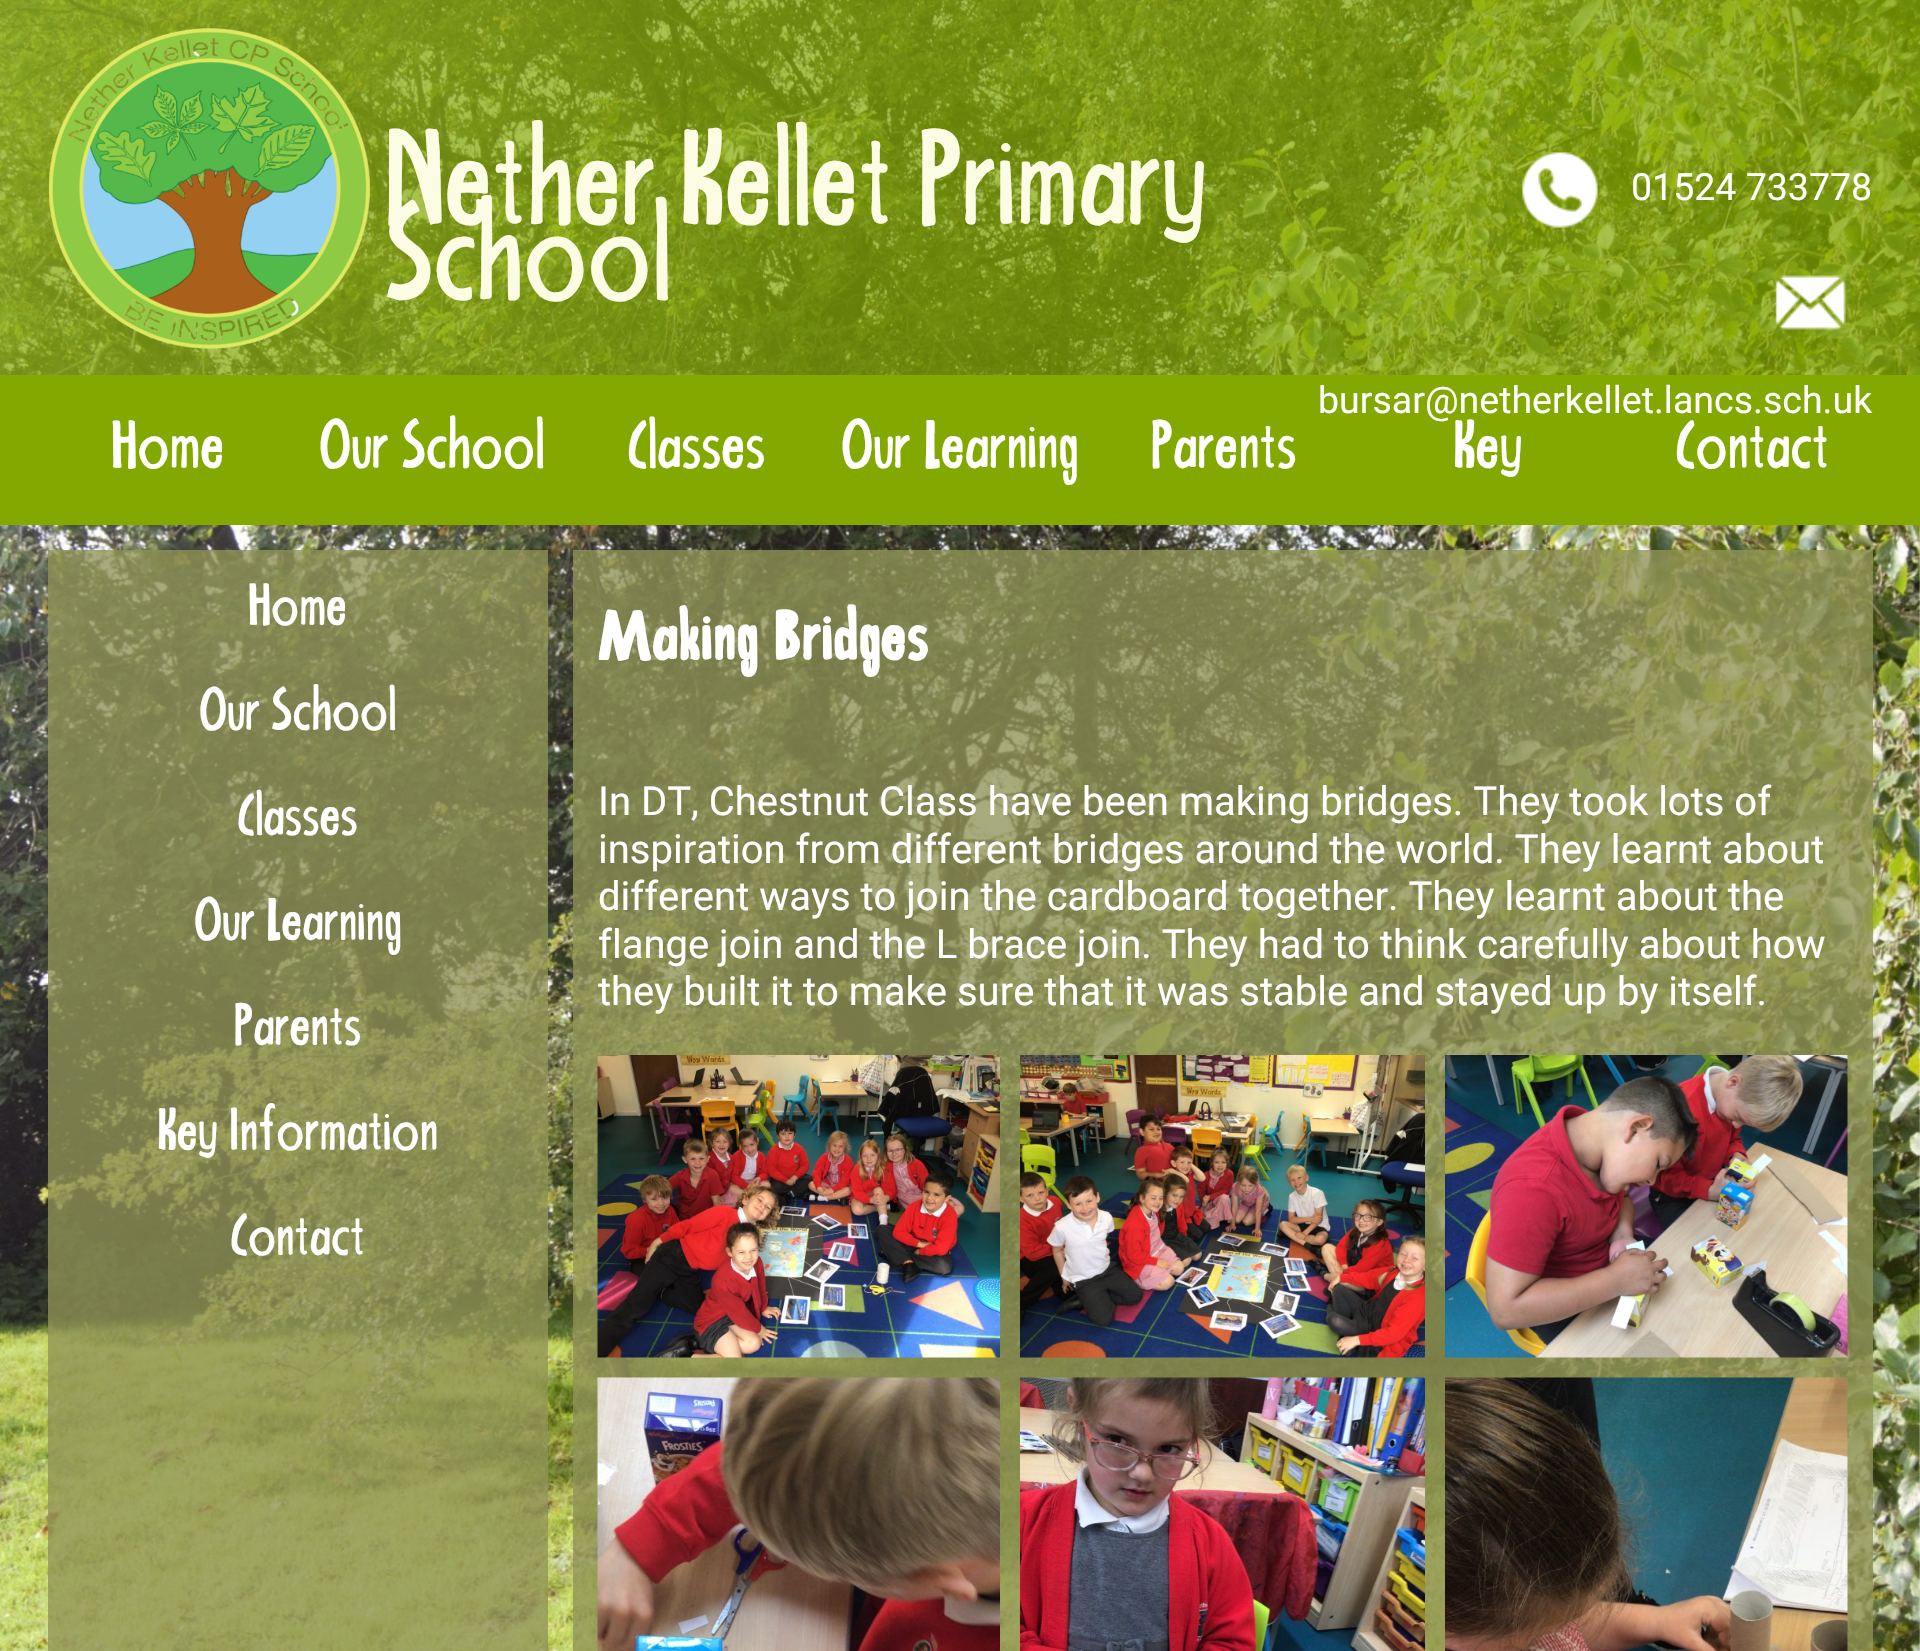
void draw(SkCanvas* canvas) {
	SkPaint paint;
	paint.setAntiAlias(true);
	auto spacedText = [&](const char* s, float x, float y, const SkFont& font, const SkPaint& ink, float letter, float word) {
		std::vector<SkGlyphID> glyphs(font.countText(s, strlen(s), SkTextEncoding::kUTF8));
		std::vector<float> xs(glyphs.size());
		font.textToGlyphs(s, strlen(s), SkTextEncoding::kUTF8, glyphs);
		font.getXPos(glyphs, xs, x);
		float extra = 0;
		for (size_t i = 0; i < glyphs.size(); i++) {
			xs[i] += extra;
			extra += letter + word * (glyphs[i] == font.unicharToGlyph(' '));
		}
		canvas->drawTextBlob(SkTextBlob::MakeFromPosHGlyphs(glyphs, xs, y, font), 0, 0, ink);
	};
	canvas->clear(0xffffffff);
	canvas->drawImageRect(SkImages::DeferredFromEncodedData(SkData::MakeFromFileName("img1.png")), SkRect::MakeXYWH(0, 0, 1920, 375), SkSamplingOptions());
	canvas->drawImageRect(SkImages::DeferredFromEncodedData(SkData::MakeFromFileName("img2.png")), SkRect::MakeXYWH(48, 28, 323, 321), SkSamplingOptions());
	SkFont f1(fontMgr->matchFamilyStyle("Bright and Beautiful", SkFontStyle::Normal()), 200);
	f1.setSubpixel(true);
	paint.setColor(0xfffcfce5);
	canvas->drawString("Nether Kellet Primary", 385, 225, f1, paint);
	canvas->drawString("School", 385, 300, f1, paint);
	canvas->drawImageRect(SkImages::DeferredFromEncodedData(SkData::MakeFromFileName("img3.png")), SkRect::MakeXYWH(1522, 152, 76, 76), SkSamplingOptions());
	SkFont f2(fontMgr->matchFamilyStyle("Roboto", SkFontStyle::Normal()), 37.5);
	f2.setSubpixel(true);
	paint.setColor(0xffffffff);
	canvas->drawString("01524 733778", 1631, 200, f2, paint);
	canvas->drawImageRect(SkImages::DeferredFromEncodedData(SkData::MakeFromFileName("img4.png")), SkRect::MakeXYWH(1775, 275, 72, 55), SkSamplingOptions());
	paint.setColor(0xff83a800);
	canvas->drawRect(SkRect::MakeXYWH(0, 375, 1920, 150), paint);
	paint.setColor(0xffffffff);
	canvas->drawString("bursar@netherkellet.lancs.sch.uk", 1318, 413, f2, paint);
	SkFont f3(fontMgr->matchFamilyStyle("Bright and Beautiful", SkFontStyle::Normal()), 100);
	f3.setSubpixel(true);
	canvas->drawString("Home", 111, 468, f3, paint);
	canvas->drawString("Our School", 319, 468, f3, paint);
	canvas->drawString("Classes", 627, 468, f3, paint);
	canvas->drawString("Our Learning", 841, 468, f3, paint);
	canvas->drawString("Parents", 1151, 468, f3, paint);
	canvas->drawString("Key", 1454, 468, f3, paint);
	canvas->drawString("Contact", 1675, 468, f3, paint);
	canvas->drawImageRect(SkImages::DeferredFromEncodedData(SkData::MakeFromFileName("img5.png")), SkRect::MakeXYWH(0, 525, 1920, 1126), SkSamplingOptions());
	paint.setColor(0xc78f9456);
	canvas->drawRect(SkRect::MakeXYWH(48, 550, 500, 1101), paint);
	SkFont f4(fontMgr->matchFamilyStyle("Bright and Beautiful", SkFontStyle::Normal()), 87.5);
	f4.setSubpixel(true);
	paint.setColor(0xffffffff);
	canvas->drawString("Home", 248, 625, f4, paint);
	canvas->drawString("Our School", 199, 730, f4, paint);
	canvas->drawString("Classes", 237, 835, f4, paint);
	canvas->drawString("Our Learning", 194, 940, f4, paint);
	canvas->drawString("Parents", 234, 1045, f4, paint);
	canvas->drawString("Key Information", 158, 1150, f4, paint);
	canvas->drawString("Contact", 230, 1255, f4, paint);
	paint.setColor(0xc78f9456);
	canvas->drawRect(SkRect::MakeXYWH(573, 550, 1300, 1101), paint);
	SkFont f5(fontMgr->matchFamilyStyle("Bright and Beautiful", SkFontStyle::Bold()), 100);
	f5.setSubpixel(true);
	paint.setColor(0xffffffff);
	spacedText("Making Bridges", 598, 660, f5, paint, 2.25, 0);
	SkFont f6(fontMgr->matchFamilyStyle("Roboto", SkFontStyle::Normal()), 40);
	f6.setSubpixel(true);
	canvas->drawString("In DT, Chestnut Class have been making bridges. They took lots of", 598, 815, f6, paint);
	canvas->drawString("inspiration from different bridges around the world. They learnt about", 598, 863, f6, paint);
	canvas->drawString("different ways to join the cardboard together. They learnt about the", 598, 910, f6, paint);
	canvas->drawString("flange join and the L brace join. They had to think carefully about how", 598, 958, f6, paint);
	canvas->drawString("they built it to make sure that it was stable and stayed up by itself.", 598, 1005, f6, paint);
	canvas->drawImageRect(SkImages::DeferredFromEncodedData(SkData::MakeFromFileName("img6.png")), SkRect::MakeXYWH(597, 1055, 403, 303), SkSamplingOptions());
	canvas->drawImageRect(SkImages::DeferredFromEncodedData(SkData::MakeFromFileName("img7.png")), SkRect::MakeXYWH(1020, 1055, 405, 303), SkSamplingOptions());
	canvas->drawImageRect(SkImages::DeferredFromEncodedData(SkData::MakeFromFileName("img8.png")), SkRect::MakeXYWH(1445, 1055, 403, 303), SkSamplingOptions());
	canvas->drawImageRect(SkImages::DeferredFromEncodedData(SkData::MakeFromFileName("img9.png")), SkRect::MakeXYWH(597, 1377, 403, 274), SkSamplingOptions());
	canvas->drawImageRect(SkImages::DeferredFromEncodedData(SkData::MakeFromFileName("img10.png")), SkRect::MakeXYWH(1020, 1377, 405, 274), SkSamplingOptions());
	canvas->drawImageRect(SkImages::DeferredFromEncodedData(SkData::MakeFromFileName("img11.png")), SkRect::MakeXYWH(1445, 1377, 403, 274), SkSamplingOptions());
}
